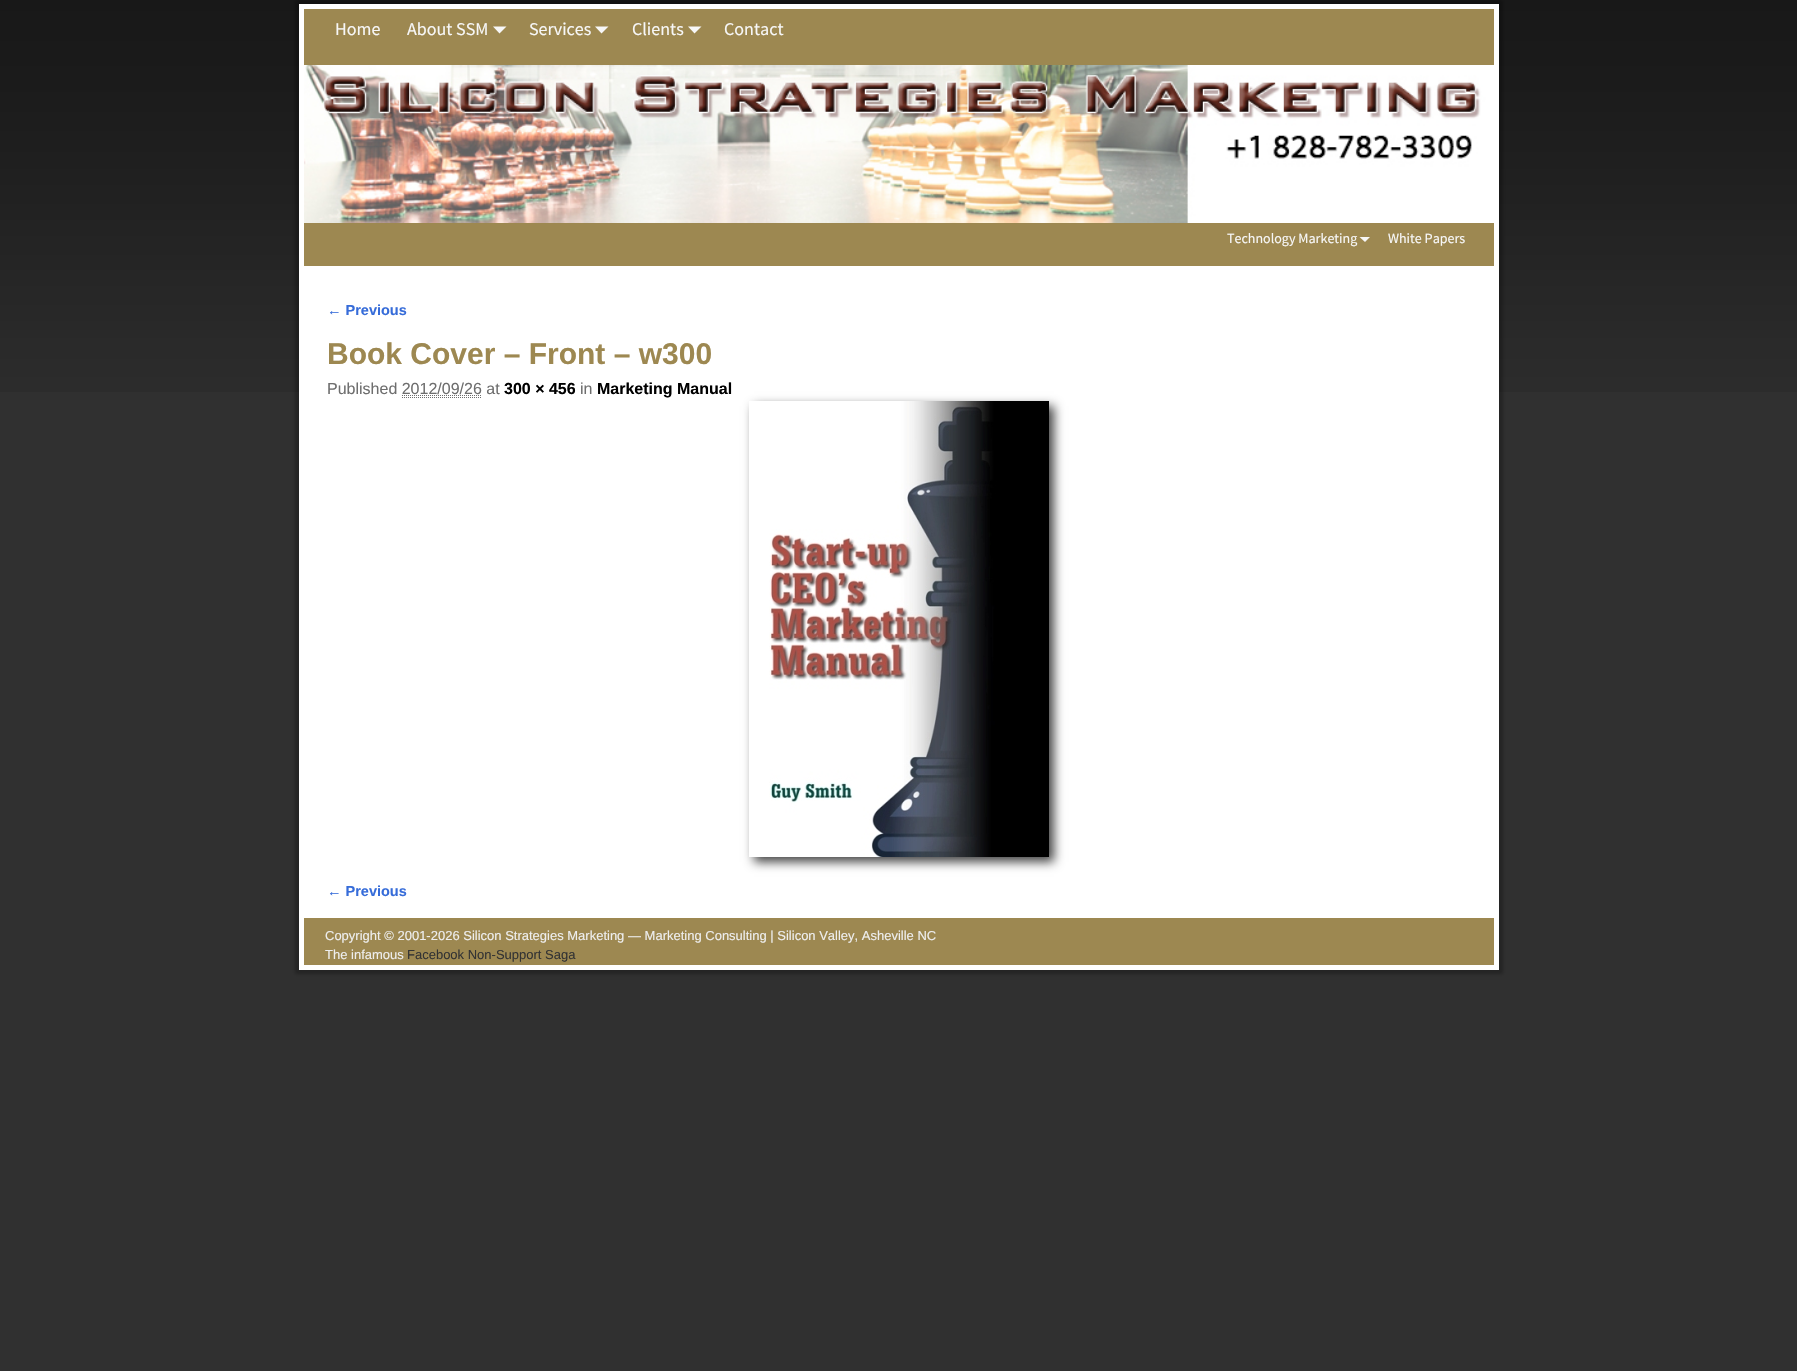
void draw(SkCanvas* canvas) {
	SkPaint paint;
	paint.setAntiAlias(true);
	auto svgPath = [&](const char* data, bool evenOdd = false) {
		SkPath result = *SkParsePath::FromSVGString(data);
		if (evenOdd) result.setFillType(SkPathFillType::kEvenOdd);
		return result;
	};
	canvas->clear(0xff303030);
	canvas->drawImageRect(SkImages::DeferredFromEncodedData(SkData::MakeFromFileName("img1.png")), SkRect::MakeXYWH(0, 0, 1797, 392), SkSamplingOptions());
	paint.setColor(0x40000000);
	paint.setMaskFilter(SkMaskFilter::MakeBlur(kNormal_SkBlurStyle, 1.5));
	canvas->drawRect(SkRect::MakeXYWH(295, 0, 1208, 974), paint);
	paint.setMaskFilter(nullptr);
	paint.setColor(0xffffffff);
	canvas->drawRect(SkRect::MakeXYWH(299, 4, 1200, 966), paint);
	paint.setColor(0xff9d8851);
	canvas->drawRect(SkRect::MakeXYWH(304, 9, 1190, 257), paint);
	SkFont f1(fontMgr->matchFamilyStyle("Source Sans Pro", SkFontStyle::Normal()), 18);
	f1.setSubpixel(true);
	paint.setColor(0xfff7f7f7);
	canvas->drawString("Home", 335, 35, f1, paint);
	canvas->drawString("About SSM", 407, 35, f1, paint);
	canvas->drawPath(svgPath("M493 26.5H506.5L499.5 33.5Z"), paint);
	canvas->drawString("Services", 529, 35, f1, paint);
	canvas->drawPath(svgPath("M595 26.5H608.5L601.5 33.5Z"), paint);
	canvas->drawString("Clients", 632, 35, f1, paint);
	canvas->drawPath(svgPath("M688 26.5H701.5L694.5 33.5Z"), paint);
	canvas->drawString("Contact", 724, 35, f1, paint);
	canvas->drawImageRect(SkImages::DeferredFromEncodedData(SkData::MakeFromFileName("img2.png")), SkRect::MakeXYWH(304, 65, 1190, 158), SkSamplingOptions());
	SkFont f2(fontMgr->matchFamilyStyle("Source Sans Pro", SkFontStyle::Normal()), 14);
	f2.setSubpixel(true);
	canvas->drawString("Technology Marketing", 1227, 243, f2, paint);
	canvas->drawPath(svgPath("M1359.5 237H1370L1365 242Z"), paint);
	canvas->drawString("White Papers", 1388, 243, f2, paint);
	SkFont f3(fontMgr->matchFamilyStyle("Liberation Sans", SkFontStyle::Bold()), 14.5);
	f3.setSubpixel(true);
	paint.setColor(0xff366cd9);
	canvas->drawString("← Previous", 327, 315, f3, paint);
	SkFont f4(fontMgr->matchFamilyStyle("Liberation Sans", SkFontStyle::Bold()), 30);
	f4.setSubpixel(true);
	paint.setColor(0xff9d8851);
	canvas->drawString("Book Cover – Front – w300", 327, 364, f4, paint);
	SkFont f5(fontMgr->matchFamilyStyle("Liberation Sans", SkFontStyle::Normal()), 16);
	f5.setSubpixel(true);
	paint.setColor(0xff6e6e6e);
	canvas->drawString("Published 2012/09/26 at", 327, 394, f5, paint);
	SkFont f6(fontMgr->matchFamilyStyle("Liberation Sans", SkFontStyle::Bold()), 16);
	f6.setSubpixel(true);
	paint.setColor(0xff000000);
	canvas->drawString("300 × 456", 504, 394, f6, paint);
	paint.setColor(0xff6e6e6e);
	canvas->drawString("in", 580, 394, f5, paint);
	paint.setColor(0xff000000);
	canvas->drawString("Marketing Manual", 597, 394, f6, paint);
	paint.setStroke(true);
	paint.setStrokeWidth(1);
	paint.setColor(0xff6e6e6e);
	paint.setPathEffect(SkDashPathEffect::Make({{1, 1}}, 0));
	canvas->drawPath(svgPath("M402 395.5H482"), paint);
	paint.setPathEffect(nullptr);
	paint.setPathEffect(SkDashPathEffect::Make({{1, 1}}, 0));
	canvas->drawPath(svgPath("M402 397.5H482"), paint);
	paint.setPathEffect(nullptr);
	canvas->save();
	canvas->clipPath(svgPath("M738 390H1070V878H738ZM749 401H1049V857H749Z", true), true);
	paint.setStroke(false);
	paint.setColor(0xff444444);
	paint.setMaskFilter(SkMaskFilter::MakeBlur(kNormal_SkBlurStyle, 5));
	canvas->drawRect(SkRect::MakeXYWH(754, 406, 300, 456), paint);
	paint.setMaskFilter(nullptr);
	canvas->restore();
	canvas->drawImageRect(SkImages::DeferredFromEncodedData(SkData::MakeFromFileName("img3.png")), SkRect::MakeXYWH(769, 401, 280, 456), SkSamplingOptions());
	paint.setColor(0xff366cd9);
	canvas->drawString("← Previous", 327, 896, f3, paint);
	paint.setColor(0xff9d8851);
	canvas->drawRect(SkRect::MakeXYWH(304, 918, 1190, 47), paint);
	SkFont f7(fontMgr->matchFamilyStyle("Liberation Sans", SkFontStyle::Normal()), 13);
	f7.setSubpixel(true);
	paint.setColor(0xffeeeeee);
	canvas->drawString("Copyright © 2001-2026 Silicon Strategies Marketing — Marketing Consulting | Silicon Valley, Asheville NC", 325, 940, f7, paint);
	canvas->drawString("The infamous", 325, 959, f7, paint);
	paint.setColor(0xff333333);
	canvas->drawString("Facebook Non-Support Saga", 407, 959, f7, paint);
}
